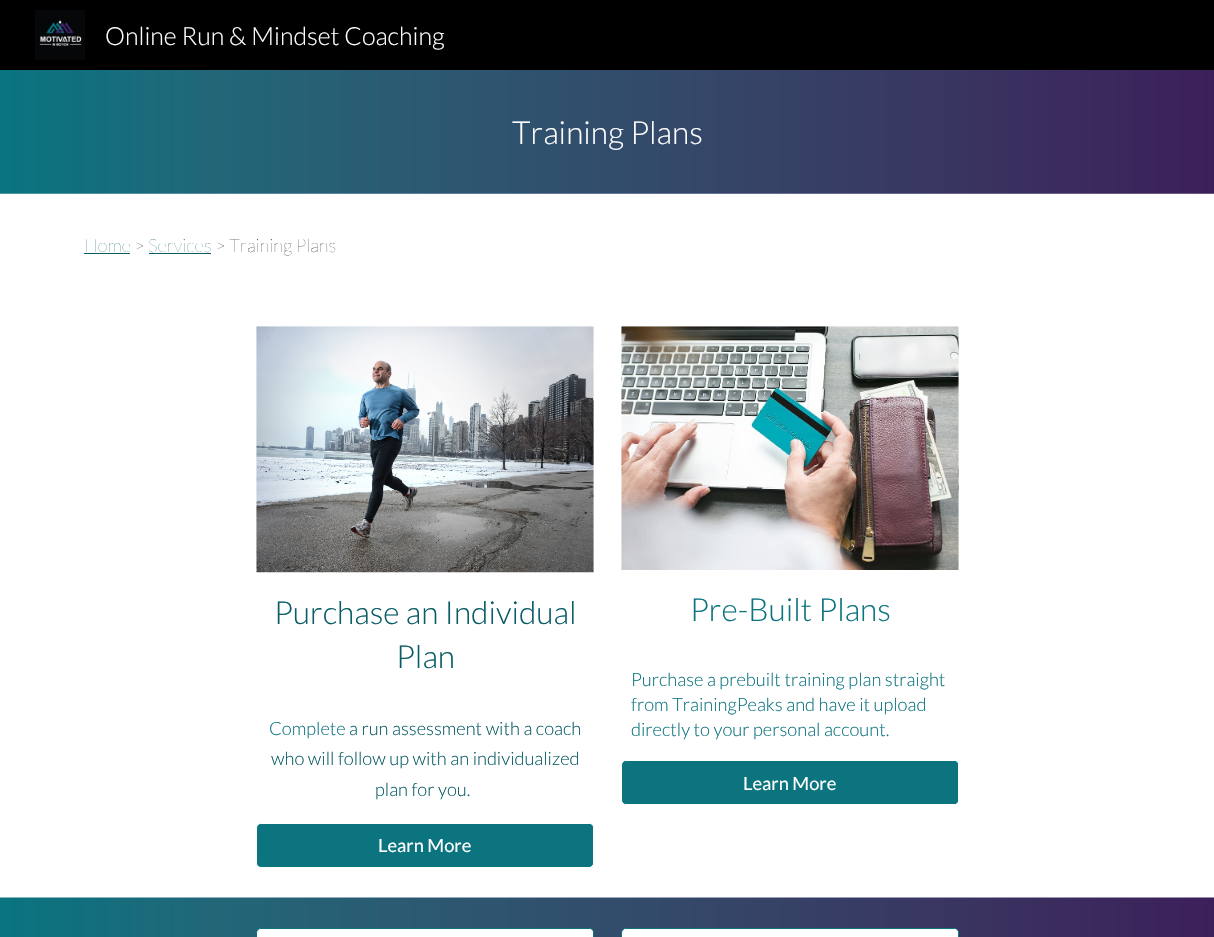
void draw(SkCanvas* canvas) {
	SkPaint paint;
	paint.setAntiAlias(true);
	canvas->clear(0xffffffff);
	paint.setColor(0xff000000);
	canvas->drawRect(SkRect::MakeXYWH(0, 0, 1214, 70), paint);
	canvas->drawImageRect(SkImages::DeferredFromEncodedData(SkData::MakeFromFileName("img1.png")), SkRect::MakeXYWH(35, 10, 50, 50), SkSamplingOptions());
	SkFont f1(fontMgr->matchFamilyStyle("Lato", SkFontStyle(300, SkFontStyle::kNormal_Width, SkFontStyle::kUpright_Slant)), 25);
	f1.setSubpixel(true);
	paint.setColor(0xffffffff);
	canvas->drawString("Online Run & Mindset Coaching", 105, 45, f1, paint);
	canvas->drawImageRect(SkImages::DeferredFromEncodedData(SkData::MakeFromFileName("img2.png")), SkRect::MakeXYWH(0, 70, 1214, 124), SkSamplingOptions());
	SkFont f2(fontMgr->matchFamilyStyle("Lato", SkFontStyle(300, SkFontStyle::kNormal_Width, SkFontStyle::kUpright_Slant)), 31.75);
	f2.setSubpixel(true);
	canvas->drawString("Training Plans", 512, 144, f2, paint);
	SkFont f3(fontMgr->matchFamilyStyle("Lato", SkFontStyle(100, SkFontStyle::kNormal_Width, SkFontStyle::kUpright_Slant)), 18.3);
	f3.setSubpixel(true);
	paint.setColor(0xff0a5d66);
	canvas->drawString("Home", 84, 252, f3, paint);
	canvas->drawRect(SkRect::MakeXYWH(84, 253, 46, 1), paint);
	paint.setColor(0xff212121);
	canvas->drawString(">", 134, 252, f3, paint);
	paint.setColor(0xff0a5d66);
	canvas->drawString("Services", 148, 252, f3, paint);
	canvas->drawRect(SkRect::MakeXYWH(149, 253, 62, 1), paint);
	paint.setColor(0xff212121);
	canvas->drawString("> Training Plans", 215, 252, f3, paint);
	canvas->drawImageRect(SkImages::DeferredFromEncodedData(SkData::MakeFromFileName("img3.png")), SkRect::MakeXYWH(256, 326, 338, 247), SkSamplingOptions());
	paint.setColor(0xff0a5d66);
	canvas->drawString("Purchase an Individual", 274, 624, f2, paint);
	canvas->drawString("Plan", 396, 668, f2, paint);
	SkFont f4(fontMgr->matchFamilyStyle("Lato", SkFontStyle(300, SkFontStyle::kNormal_Width, SkFontStyle::kUpright_Slant)), 18.3);
	f4.setSubpixel(true);
	paint.setColor(0xff0c747f);
	canvas->drawString("Complete", 269, 735, f4, paint);
	paint.setColor(0xff0a5d66);
	canvas->drawString("a run assessment with a coach", 349, 735, f4, paint);
	canvas->drawString("who will follow up with an individualized", 271, 765, f4, paint);
	canvas->drawString("plan for you.", 375, 796, f4, paint);
	paint.setColor(0xff0c747f);
	canvas->drawRoundRect(SkRect::MakeXYWH(256.5, 823.5, 337, 44), 4.5, 4.5, paint);
	paint.setStroke(true);
	paint.setStrokeWidth(1);
	paint.setColor(0xffffffff);
	canvas->drawRoundRect(SkRect::MakeXYWH(256.5, 823.5, 337, 44), 4.5, 4.5, paint);
	paint.setStroke(false);
	paint.setColor(0xff0c747f);
	canvas->drawRoundRect(SkRect::MakeXYWH(258, 824, 335, 42), 4, 4, paint);
	SkFont f5(fontMgr->matchFamilyStyle("Lato", SkFontStyle::Normal()), 18.3);
	f5.setSubpixel(true);
	paint.setColor(0xffffffff);
	canvas->drawString("Learn More", 378, 852, f5, paint);
	canvas->drawImageRect(SkImages::DeferredFromEncodedData(SkData::MakeFromFileName("img4.png")), SkRect::MakeXYWH(621, 326, 338, 244), SkSamplingOptions());
	paint.setColor(0xff0c747f);
	canvas->drawString("Pre-Built Plans", 690, 621, f2, paint);
	canvas->drawString("Purchase a prebuilt training plan straight", 631, 686, f4, paint);
	canvas->drawString("from TrainingPeaks and have it upload", 631, 711, f4, paint);
	canvas->drawString("directly to your personal account.", 631, 736, f4, paint);
	canvas->drawRoundRect(SkRect::MakeXYWH(621.5, 760.5, 337, 44), 4.5, 4.5, paint);
	paint.setStroke(true);
	paint.setColor(0xffffffff);
	canvas->drawRoundRect(SkRect::MakeXYWH(621.5, 760.5, 337, 44), 4.5, 4.5, paint);
	paint.setStroke(false);
	paint.setColor(0xff0c747f);
	canvas->drawRoundRect(SkRect::MakeXYWH(623, 761, 335, 43), 4, 4, paint);
	paint.setColor(0xffffffff);
	canvas->drawString("Learn More", 743, 790, f5, paint);
	canvas->drawImageRect(SkImages::DeferredFromEncodedData(SkData::MakeFromFileName("img5.png")), SkRect::MakeXYWH(0, 897, 1214, 40), SkSamplingOptions());
	canvas->drawRoundRect(SkRect::MakeXYWH(256.5, 928.5, 337, 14), 4.5, 4.5, paint);
	paint.setStroke(true);
	paint.setColor(0xff0c747f);
	canvas->drawRoundRect(SkRect::MakeXYWH(256.5, 928.5, 337, 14), 4.5, 4.5, paint);
	paint.setStroke(false);
	paint.setColor(0xffffffff);
	canvas->drawRoundRect(SkRect::MakeXYWH(258, 929, 335, 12), 4, 4, paint);
	canvas->drawRoundRect(SkRect::MakeXYWH(621.5, 928.5, 337, 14), 4.5, 4.5, paint);
	paint.setStroke(true);
	paint.setColor(0xff0c747f);
	canvas->drawRoundRect(SkRect::MakeXYWH(621.5, 928.5, 337, 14), 4.5, 4.5, paint);
	paint.setStroke(false);
	paint.setColor(0xffffffff);
	canvas->drawRoundRect(SkRect::MakeXYWH(623, 929, 335, 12), 4, 4, paint);
}
